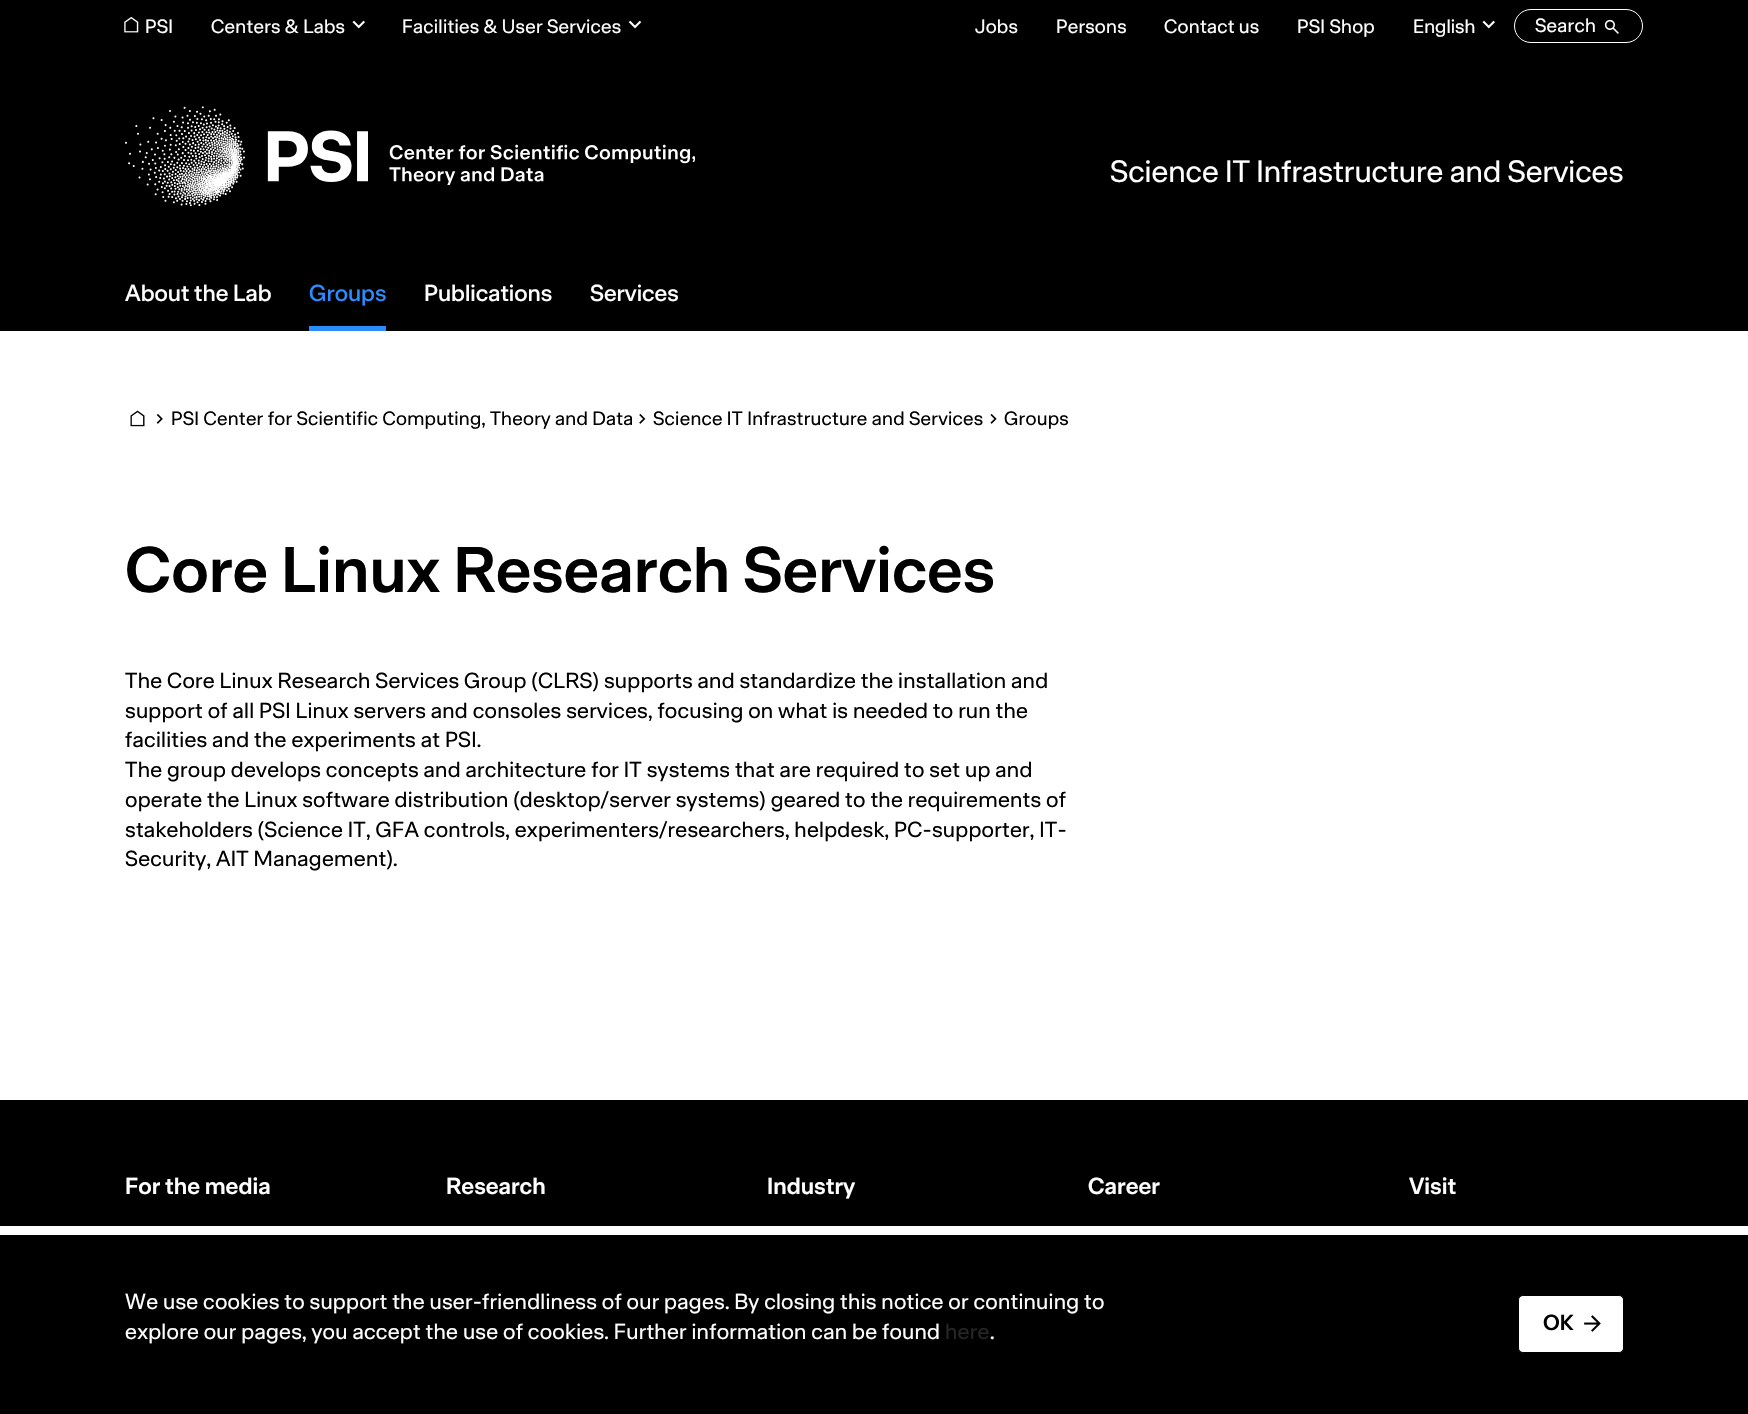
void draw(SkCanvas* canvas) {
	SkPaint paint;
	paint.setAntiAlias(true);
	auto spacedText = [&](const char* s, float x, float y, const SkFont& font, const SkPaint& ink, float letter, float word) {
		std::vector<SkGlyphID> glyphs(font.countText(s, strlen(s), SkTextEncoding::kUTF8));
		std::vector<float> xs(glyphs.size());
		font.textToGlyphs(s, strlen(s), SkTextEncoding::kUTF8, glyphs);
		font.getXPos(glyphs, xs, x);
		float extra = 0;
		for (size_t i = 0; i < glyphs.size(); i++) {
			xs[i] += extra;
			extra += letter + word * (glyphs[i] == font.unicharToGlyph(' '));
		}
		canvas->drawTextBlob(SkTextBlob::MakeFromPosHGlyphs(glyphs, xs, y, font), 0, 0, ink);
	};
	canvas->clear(0xffffffff);
	paint.setColor(0xff000000);
	canvas->drawRect(SkRect::MakeXYWH(0, 0, 1748, 331), paint);
	canvas->drawImageRect(SkImages::DeferredFromEncodedData(SkData::MakeFromFileName("img1.png")), SkRect::MakeXYWH(124, 16, 15, 17), SkSamplingOptions());
	SkFont f1(fontMgr->matchFamilyStyle("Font", SkFontStyle::Normal()), 18.75);
	f1.setSubpixel(true);
	paint.setColor(0xffffffff);
	spacedText("PSI", 145, 33, f1, paint, 0.25, 0);
	spacedText("Centers & Labs", 211, 33, f1, paint, 0.25, 0);
	canvas->drawImageRect(SkImages::DeferredFromEncodedData(SkData::MakeFromFileName("img2.png")), SkRect::MakeXYWH(352, 20, 13, 9), SkSamplingOptions());
	spacedText("Facilities & User Services", 402, 33, f1, paint, 0.25, 0);
	canvas->drawImageRect(SkImages::DeferredFromEncodedData(SkData::MakeFromFileName("img3.png")), SkRect::MakeXYWH(628, 20, 14, 9), SkSamplingOptions());
	spacedText("Jobs", 975, 33, f1, paint, 0.25, 0);
	spacedText("Persons", 1056, 33, f1, paint, 0.25, 0);
	spacedText("Contact us", 1164, 33, f1, paint, 0.25, 0);
	spacedText("PSI Shop", 1297, 33, f1, paint, 0.25, 0);
	canvas->drawString("English", 1413, 33, f1, paint);
	canvas->drawImageRect(SkImages::DeferredFromEncodedData(SkData::MakeFromFileName("img2.png")), SkRect::MakeXYWH(1482, 20, 13, 9), SkSamplingOptions());
	paint.setStroke(true);
	paint.setStrokeWidth(1);
	canvas->drawRoundRect(SkRect::MakeXYWH(1514.5, 9.5, 128, 33), 16.5, 16.5, paint);
	paint.setStroke(false);
	spacedText("Search", 1535, 32, f1, paint, 0.25, 0);
	canvas->drawImageRect(SkImages::DeferredFromEncodedData(SkData::MakeFromFileName("img4.png")), SkRect::MakeXYWH(1604, 19, 15, 15), SkSamplingOptions());
	canvas->drawImageRect(SkImages::DeferredFromEncodedData(SkData::MakeFromFileName("img5.png")), SkRect::MakeXYWH(125, 106, 570, 101), SkSamplingOptions());
	SkFont f2(fontMgr->matchFamilyStyle("Font", SkFontStyle::Normal()), 30);
	f2.setSubpixel(true);
	canvas->drawString("Science IT Infrastructure and Services", 1110, 182, f2, paint);
	SkFont f3(fontMgr->matchFamilyStyle("Font", SkFontStyle(500, SkFontStyle::kNormal_Width, SkFontStyle::kUpright_Slant)), 22.5);
	f3.setSubpixel(true);
	canvas->drawString("About the Lab", 125, 301, f3, paint);
	paint.setColor(0xff2a8cff);
	canvas->drawString("Groups", 309, 301, f3, paint);
	canvas->drawRect(SkRect::MakeXYWH(309, 326, 77, 5), paint);
	paint.setColor(0xffffffff);
	canvas->drawString("Publications", 424, 301, f3, paint);
	canvas->drawString("Services", 590, 301, f3, paint);
	canvas->drawImageRect(SkImages::DeferredFromEncodedData(SkData::MakeFromFileName("img6.png")), SkRect::MakeXYWH(130, 410, 15, 17), SkSamplingOptions());
	canvas->drawImageRect(SkImages::DeferredFromEncodedData(SkData::MakeFromFileName("img7.png")), SkRect::MakeXYWH(156, 414, 7, 10), SkSamplingOptions());
	paint.setColor(0xff000000);
	spacedText("PSI Center for Scientific Computing, Theory and Data", 171, 425, f1, paint, 0.25, 0);
	canvas->drawImageRect(SkImages::DeferredFromEncodedData(SkData::MakeFromFileName("img8.png")), SkRect::MakeXYWH(639, 414, 7, 10), SkSamplingOptions());
	spacedText("Science IT Infrastructure and Services", 653, 425, f1, paint, 0.25, 0);
	canvas->drawImageRect(SkImages::DeferredFromEncodedData(SkData::MakeFromFileName("img9.png")), SkRect::MakeXYWH(990, 414, 7, 10), SkSamplingOptions());
	spacedText("Groups", 1004, 425, f1, paint, 0.25, 0);
	SkFont f4(fontMgr->matchFamilyStyle("Font", SkFontStyle(600, SkFontStyle::kNormal_Width, SkFontStyle::kUpright_Slant)), 62.5);
	f4.setSubpixel(true);
	canvas->drawString("Core Linux Research Services", 125, 592, f4, paint);
	SkFont f5(fontMgr->matchFamilyStyle("Font", SkFontStyle::Normal()), 21.25);
	f5.setSubpixel(true);
	spacedText("The Core Linux Research Services Group (CLRS) supports and standardize the installation and", 125, 688, f5, paint, 0.25, 0);
	spacedText("support of all PSI Linux servers and consoles services, focusing on what is needed to run the", 125, 718, f5, paint, 0.25, 0);
	spacedText("facilities and the experiments at PSI.", 125, 747, f5, paint, 0.25, 0);
	spacedText("The group develops concepts and architecture for IT systems that are required to set up and", 125, 777, f5, paint, 0.25, 0);
	spacedText("operate the Linux software distribution (desktop/server systems) geared to the requirements of", 125, 807, f5, paint, 0.25, 0);
	spacedText("stakeholders (Science IT, GFA controls, experimenters/researchers, helpdesk, PC-supporter, IT-", 125, 837, f5, paint, 0.25, 0);
	spacedText("Security, AIT Management).", 125, 866, f5, paint, 0.25, 0);
	canvas->drawRect(SkRect::MakeXYWH(0, 1100, 1748, 126), paint);
	SkFont f6(fontMgr->matchFamilyStyle("Font", SkFontStyle(600, SkFontStyle::kNormal_Width, SkFontStyle::kUpright_Slant)), 22.5);
	f6.setSubpixel(true);
	paint.setColor(0xffffffff);
	canvas->drawString("For the media", 125, 1194, f6, paint);
	canvas->drawString("Research", 446, 1194, f6, paint);
	canvas->drawString("Industry", 767, 1194, f6, paint);
	canvas->drawString("Career", 1088, 1194, f6, paint);
	canvas->drawString("Visit", 1409, 1194, f6, paint);
	paint.setColor(0xff000000);
	canvas->drawRect(SkRect::MakeXYWH(0, 1235, 1748, 179), paint);
	paint.setColor(0xffffffff);
	spacedText("We use cookies to support the user-friendliness of our pages. By closing this notice or continuing to", 125, 1309, f5, paint, 0.25, 0);
	spacedText("explore our pages, you accept the use of cookies. Further information can be found", 125, 1339, f5, paint, 0.25, 0);
	paint.setColor(0xff262626);
	spacedText("here", 945, 1339, f5, paint, 0.25, 0);
	paint.setColor(0xffffffff);
	spacedText(".", 990, 1339, f5, paint, 0.25, 0);
	canvas->drawRoundRect(SkRect::MakeXYWH(1518.5, 1295.5, 105, 57), 4.5, 4.5, paint);
	paint.setStroke(true);
	paint.setColor(0xff000000);
	canvas->drawRoundRect(SkRect::MakeXYWH(1518.5, 1295.5, 105, 57), 4.5, 4.5, paint);
	SkFont f7(fontMgr->matchFamilyStyle("Font", SkFontStyle(600, SkFontStyle::kNormal_Width, SkFontStyle::kUpright_Slant)), 21.25);
	f7.setSubpixel(true);
	paint.setStroke(false);
	canvas->drawString("OK", 1543, 1330, f7, paint);
	canvas->drawImageRect(SkImages::DeferredFromEncodedData(SkData::MakeFromFileName("img10.png")), SkRect::MakeXYWH(1584, 1315, 17, 17), SkSamplingOptions());
}
